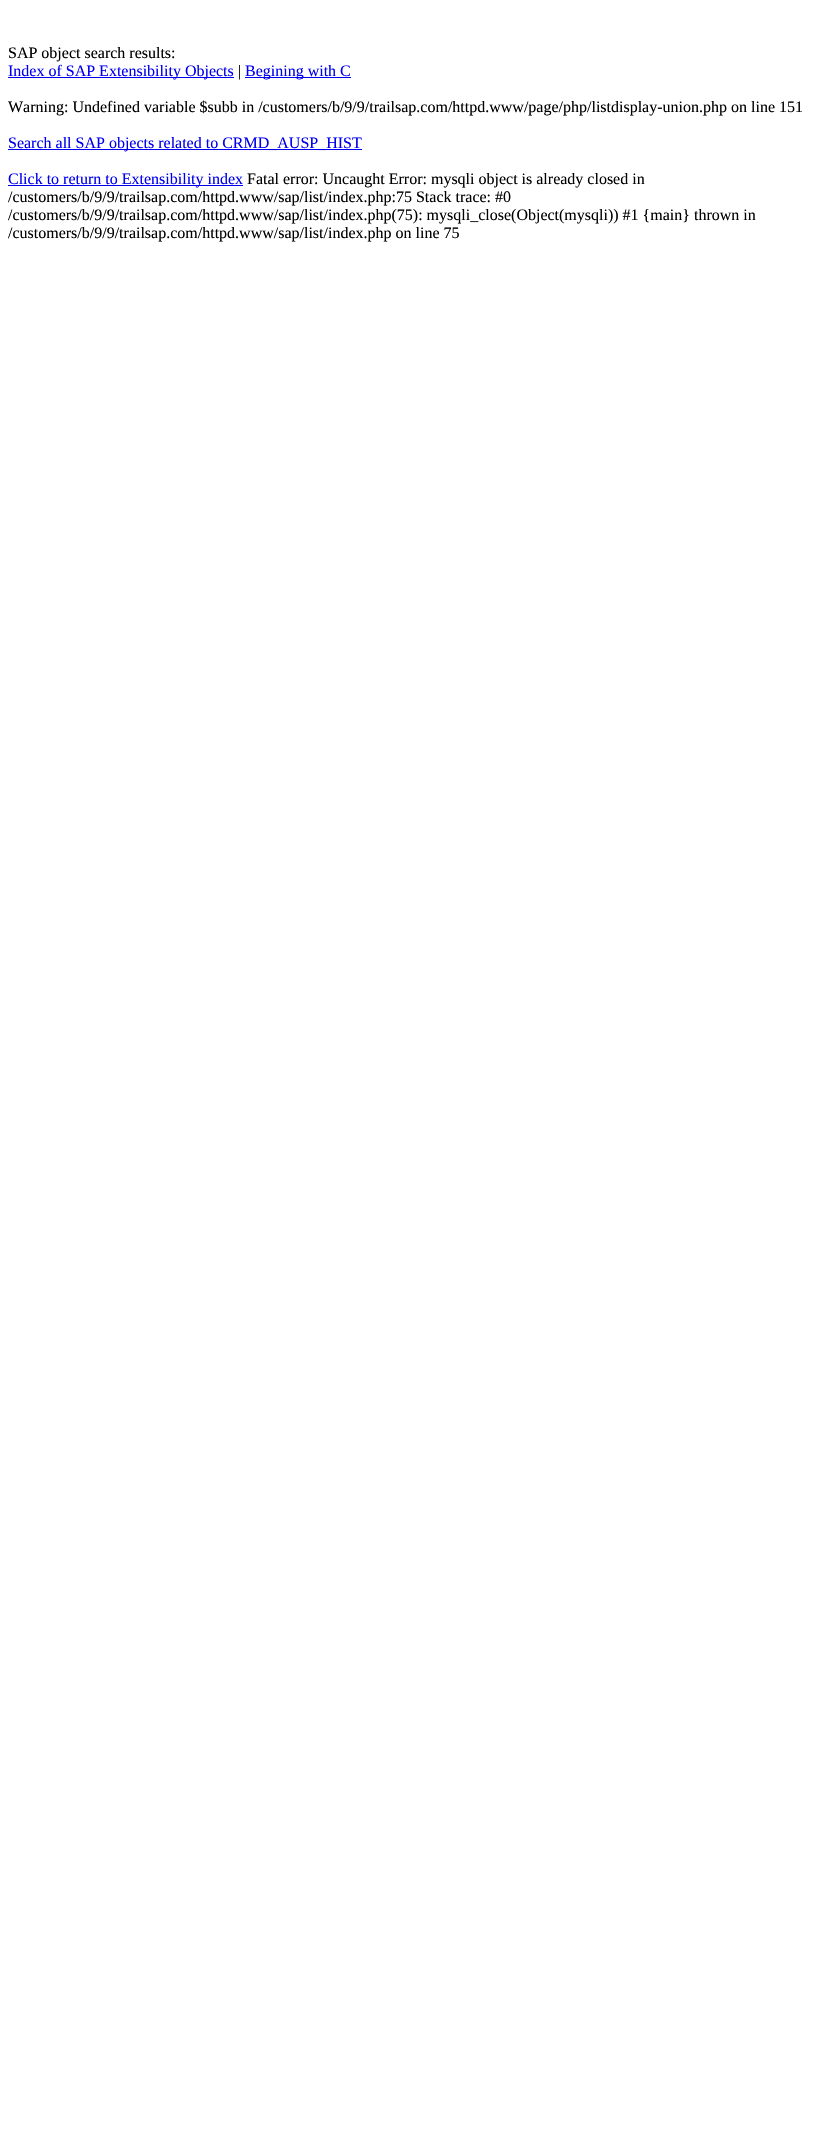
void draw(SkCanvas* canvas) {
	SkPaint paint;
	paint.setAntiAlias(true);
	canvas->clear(0xffffffff);
	SkFont f1(fontMgr->matchFamilyStyle("Liberation Serif", SkFontStyle::Normal()), 16);
	f1.setSubpixel(true);
	paint.setColor(0xff000000);
	canvas->drawString("SAP object search results:", 8, 58, f1, paint);
	paint.setColor(0xff0000ee);
	canvas->drawRect(SkRect::MakeXYWH(8, 77, 226, 1), paint);
	canvas->drawString("Index of SAP Extensibility Objects", 8, 76, f1, paint);
	paint.setColor(0xff000000);
	canvas->drawString("|", 238, 76, f1, paint);
	paint.setColor(0xff0000ee);
	canvas->drawRect(SkRect::MakeXYWH(245, 77, 106, 1), paint);
	canvas->drawString("Begining with C", 245, 76, f1, paint);
	paint.setColor(0xff000000);
	canvas->drawString("Warning: Undefined variable $subb in /customers/b/9/9/trailsap.com/httpd.www/page/php/listdisplay-union.php on line 151", 8, 112, f1, paint);
	paint.setColor(0xff0000ee);
	canvas->drawRect(SkRect::MakeXYWH(8, 149, 354, 1), paint);
	canvas->drawString("Search all SAP objects related to CRMD_AUSP_HIST", 8, 148, f1, paint);
	canvas->drawRect(SkRect::MakeXYWH(8, 185, 235, 1), paint);
	canvas->drawString("Click to return to Extensibility index", 8, 184, f1, paint);
	paint.setColor(0xff000000);
	canvas->drawString("Fatal error: Uncaught Error: mysqli object is already closed in", 247, 184, f1, paint);
	canvas->drawString("/customers/b/9/9/trailsap.com/httpd.www/sap/list/index.php:75 Stack trace: #0", 8, 202, f1, paint);
	canvas->drawString("/customers/b/9/9/trailsap.com/httpd.www/sap/list/index.php(75): mysqli_close(Object(mysqli)) #1 {main} thrown in", 8, 220, f1, paint);
	canvas->drawString("/customers/b/9/9/trailsap.com/httpd.www/sap/list/index.php on line 75", 8, 238, f1, paint);
}
